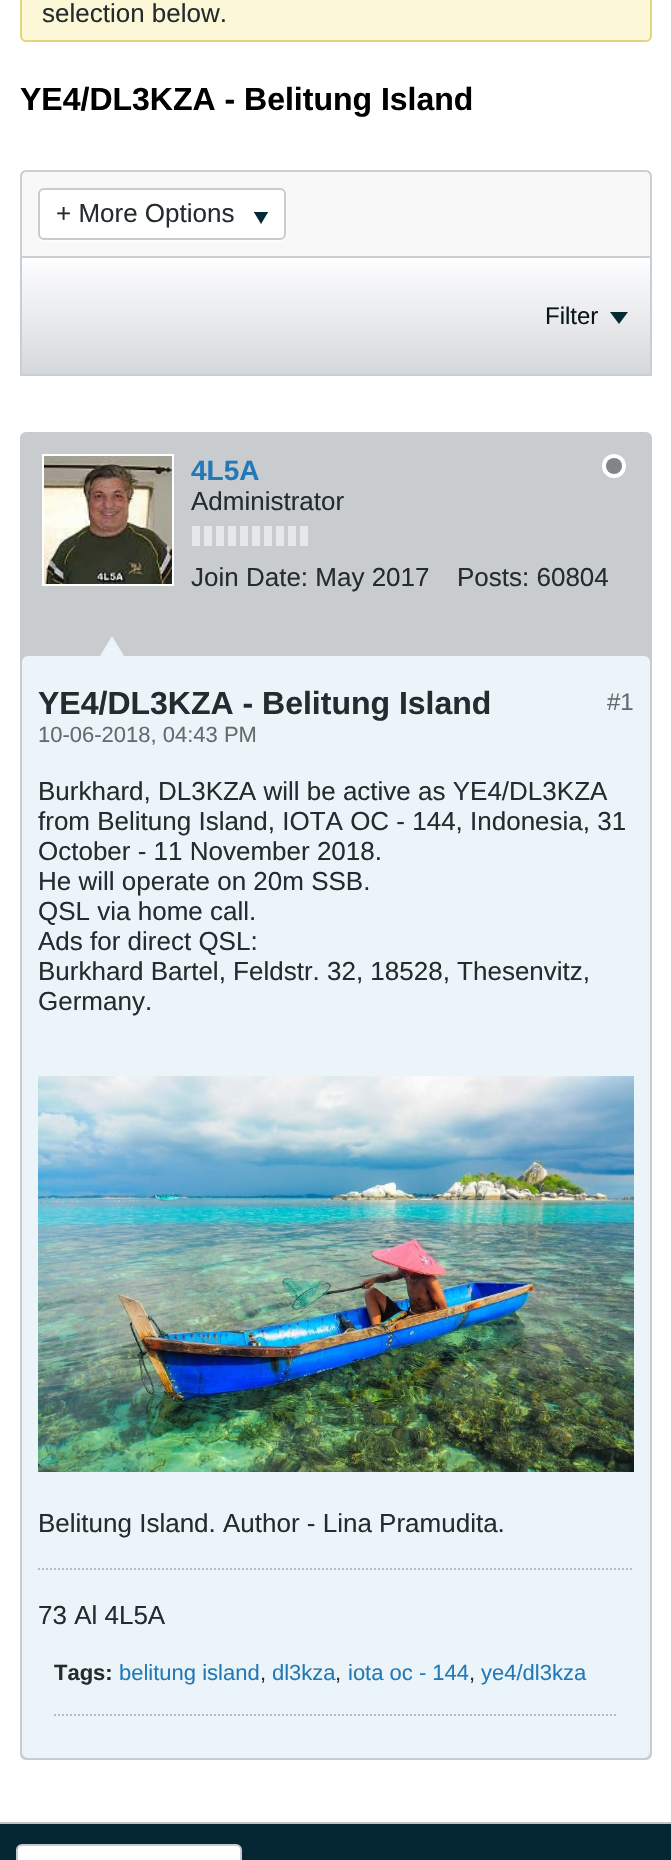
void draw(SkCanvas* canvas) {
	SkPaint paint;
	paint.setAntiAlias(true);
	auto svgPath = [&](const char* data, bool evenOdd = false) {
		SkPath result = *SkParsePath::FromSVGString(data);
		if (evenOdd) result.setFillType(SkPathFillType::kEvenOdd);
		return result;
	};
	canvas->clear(0xffffffff);
	paint.setColor(0xfffcf7d7);
	canvas->drawRoundRect(SkRect::MakeXYWH(21, -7, 630, 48), 5, 5, paint);
	paint.setStroke(true);
	paint.setStrokeWidth(2);
	paint.setColor(0xffe1d47e);
	canvas->drawRoundRect(SkRect::MakeXYWH(21, -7, 630, 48), 5, 5, paint);
	SkFont f1(fontMgr->matchFamilyStyle("Liberation Sans", SkFontStyle::Normal()), 26);
	f1.setSubpixel(true);
	paint.setStroke(false);
	paint.setColor(0xff252c2f);
	canvas->drawString("selection below.", 42, 22, f1, paint);
	SkFont f2(fontMgr->matchFamilyStyle("Liberation Sans", SkFontStyle::Bold()), 32);
	f2.setSubpixel(true);
	paint.setColor(0xff000000);
	canvas->drawString("YE4/DL3KZA - Belitung Island", 20, 110, f2, paint);
	paint.setColor(0xfff8f8f8);
	canvas->drawPath(svgPath("M26 170H646C649.5 170 652 172.5 652 176V256H20V176C20 172.5 22.5 170 26 170Z"), paint);
	paint.setColor(0xffc9ced2);
	canvas->drawPath(svgPath("M26 170H646C649 170 652 173 652 176V256H20V176C20 173 23 170 26 170ZM26 172H646C648 172 650 174 650 176V256H22V176C22 174 24 172 26 172Z", true), paint);
	paint.setColor(0xfffdfdfd);
	canvas->drawPath(svgPath("M38 234V236C38 239 41 242 44 242H280C283 242 286 239 286 236V234C286 237 283 240 280 240H44C41 240 38 237 38 234Z"), paint);
	paint.setColor(0xffffffff);
	canvas->drawRoundRect(SkRect::MakeXYWH(39, 189, 246, 50), 5, 5, paint);
	paint.setStroke(true);
	paint.setColor(0xffc8ccce);
	canvas->drawRoundRect(SkRect::MakeXYWH(39, 189, 246, 50), 5, 5, paint);
	paint.setStroke(false);
	paint.setColor(0xff252c2f);
	canvas->drawString("+ More Options", 56, 222, f1, paint);
	canvas->drawImageRect(SkImages::DeferredFromEncodedData(SkData::MakeFromFileName("img1.png")), SkRect::MakeXYWH(254, 212, 14, 12), SkSamplingOptions());
	{
		const SkColor colors[] = {0xfffefeff, 0xffd5d8da};
		const float stops[] = {0, 1};
		const SkPoint ends[] = {{336, 258}, {336, 374}};
		paint.setShader(SkGradientShader::MakeLinear(ends, colors, stops, 2, SkTileMode::kClamp));
		paint.setAlpha(255);
	}
	canvas->drawRect(SkRect::MakeXYWH(22, 262, 628, 112), paint);
	paint.setStroke(true);
	paint.setShader(nullptr);
	paint.setColor(0xffc9ced2);
	canvas->drawRect(SkRect::MakeXYWH(21, 257, 630, 118), paint);
	SkFont f3(fontMgr->matchFamilyStyle("Liberation Sans", SkFontStyle::Normal()), 24);
	f3.setSubpixel(true);
	paint.setStroke(false);
	paint.setColor(0xff09161b);
	canvas->drawString("Filter", 545, 324, f3, paint);
	canvas->drawImageRect(SkImages::DeferredFromEncodedData(SkData::MakeFromFileName("img2.png")), SkRect::MakeXYWH(610, 312, 18, 12), SkSamplingOptions());
	paint.setColor(0xffc8ccce);
	canvas->drawRoundRect(SkRect::MakeXYWH(21, 433, 630, 1326), 5, 5, paint);
	paint.setStroke(true);
	canvas->drawRoundRect(SkRect::MakeXYWH(21, 433, 630, 1326), 5, 5, paint);
	paint.setColor(0xffffffff);
	canvas->drawRect(SkRect::MakeXYWH(43, 455, 130, 130), paint);
	canvas->drawImageRect(SkImages::DeferredFromEncodedData(SkData::MakeFromFileName("img3.png")), SkRect::MakeXYWH(44, 456, 128, 128), SkSamplingOptions());
	SkFont f4(fontMgr->matchFamilyStyle("Liberation Sans", SkFontStyle::Bold()), 28);
	f4.setSubpixel(true);
	paint.setStroke(false);
	paint.setColor(0xff2379b5);
	canvas->drawString("4L5A", 191, 480, f4, paint);
	canvas->drawImageRect(SkImages::DeferredFromEncodedData(SkData::MakeFromFileName("img4.png")), SkRect::MakeXYWH(602, 454, 24, 24), SkSamplingOptions());
	paint.setColor(0xff252c2f);
	canvas->drawString("Administrator", 191, 510, f1, paint);
	paint.setColor(0xffe5e8e9);
	canvas->drawRect(SkRect::MakeXYWH(192, 526, 8, 20), paint);
	canvas->drawRect(SkRect::MakeXYWH(204, 526, 8, 20), paint);
	canvas->drawRect(SkRect::MakeXYWH(216, 526, 8, 20), paint);
	canvas->drawRect(SkRect::MakeXYWH(228, 526, 8, 20), paint);
	canvas->drawRect(SkRect::MakeXYWH(240, 526, 8, 20), paint);
	canvas->drawRect(SkRect::MakeXYWH(252, 526, 8, 20), paint);
	canvas->drawRect(SkRect::MakeXYWH(264, 526, 8, 20), paint);
	canvas->drawRect(SkRect::MakeXYWH(276, 526, 8, 20), paint);
	canvas->drawRect(SkRect::MakeXYWH(288, 526, 8, 20), paint);
	canvas->drawRect(SkRect::MakeXYWH(300, 526, 8, 20), paint);
	paint.setColor(0xff252c2f);
	canvas->drawString("Join Date: May 2017", 191, 586, f1, paint);
	canvas->drawString("Posts: 60804", 457, 586, f1, paint);
	paint.setColor(0xffebf4f9);
	canvas->drawRoundRect(SkRect::MakeXYWH(22, 656, 628, 1102), 6, 6, paint);
	canvas->drawPath(svgPath("M124 656H100L112 636Z"), paint);
	paint.setColor(0xff252c2f);
	canvas->drawString("YE4/DL3KZA - Belitung Island", 38, 714, f2, paint);
	SkFont f5(fontMgr->matchFamilyStyle("Liberation Sans", SkFontStyle::Normal()), 22);
	f5.setSubpixel(true);
	paint.setColor(0xff656a6d);
	canvas->drawString("10-06-2018, 04:43 PM", 38, 742, f5, paint);
	canvas->drawString("#1", 607, 710, f3, paint);
	paint.setColor(0xff252c2f);
	canvas->drawString("Burkhard, DL3KZA will be active as YE4/DL3KZA", 38, 800, f1, paint);
	canvas->drawString("from Belitung Island, IOTA OC - 144, Indonesia, 31", 38, 830, f1, paint);
	canvas->drawString("October - 11 November 2018.", 38, 860, f1, paint);
	canvas->drawString("He will operate on 20m SSB.", 38, 890, f1, paint);
	canvas->drawString("QSL via home call.", 38, 920, f1, paint);
	canvas->drawString("Ads for direct QSL:", 38, 950, f1, paint);
	canvas->drawString("Burkhard Bartel, Feldstr. 32, 18528, Thesenvitz,", 38, 980, f1, paint);
	canvas->drawString("Germany.", 38, 1010, f1, paint);
	canvas->drawImageRect(SkImages::DeferredFromEncodedData(SkData::MakeFromFileName("img5.png")), SkRect::MakeXYWH(38, 1076, 596, 396), SkSamplingOptions());
	canvas->drawString("Belitung Island. Author - Lina Pramudita.", 38, 1532, f1, paint);
	paint.setStroke(true);
	paint.setColor(0xffb7bcbe);
	paint.setPathEffect(SkDashPathEffect::Make({{2, 2}}, 0));
	canvas->drawPath(svgPath("M38 1569H634"), paint);
	paint.setPathEffect(nullptr);
	paint.setStroke(false);
	paint.setColor(0xff252c2f);
	canvas->drawString("73 Al 4L5A", 38, 1624, f1, paint);
	SkFont f6(fontMgr->matchFamilyStyle("Liberation Sans", SkFontStyle::Bold()), 22);
	f6.setSubpixel(true);
	canvas->drawString("Tags:", 54, 1680, f6, paint);
	paint.setColor(0xff2379b5);
	canvas->drawString("belitung island", 119, 1680, f5, paint);
	paint.setColor(0xff252c2f);
	canvas->drawString(",", 260, 1680, f5, paint);
	paint.setColor(0xff2379b5);
	canvas->drawString("dl3kza", 272, 1680, f5, paint);
	paint.setColor(0xff252c2f);
	canvas->drawString(",", 335, 1680, f5, paint);
	paint.setColor(0xff2379b5);
	canvas->drawString("iota oc - 144", 348, 1680, f5, paint);
	paint.setColor(0xff252c2f);
	canvas->drawString(",", 469, 1680, f5, paint);
	paint.setColor(0xff2379b5);
	canvas->drawString("ye4/dl3kza", 481, 1680, f5, paint);
	paint.setStroke(true);
	paint.setColor(0xffb7bcbe);
	paint.setPathEffect(SkDashPathEffect::Make({{2, 2}}, 0));
	canvas->drawPath(svgPath("M54 1715H618"), paint);
	paint.setPathEffect(nullptr);
	paint.setStroke(false);
	paint.setColor(0xff052733);
	canvas->drawRect(SkRect::MakeXYWH(0, 1824, 671, 36), paint);
	paint.setColor(0xffc2c2c2);
	canvas->drawRect(SkRect::MakeXYWH(0, 1822, 671, 2), paint);
	paint.setColor(0xffffffff);
	canvas->drawRoundRect(SkRect::MakeXYWH(17, 1845, 224, 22), 5, 5, paint);
	paint.setStroke(true);
	paint.setColor(0xffc8ccce);
	canvas->drawRoundRect(SkRect::MakeXYWH(17, 1845, 224, 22), 5, 5, paint);
}
